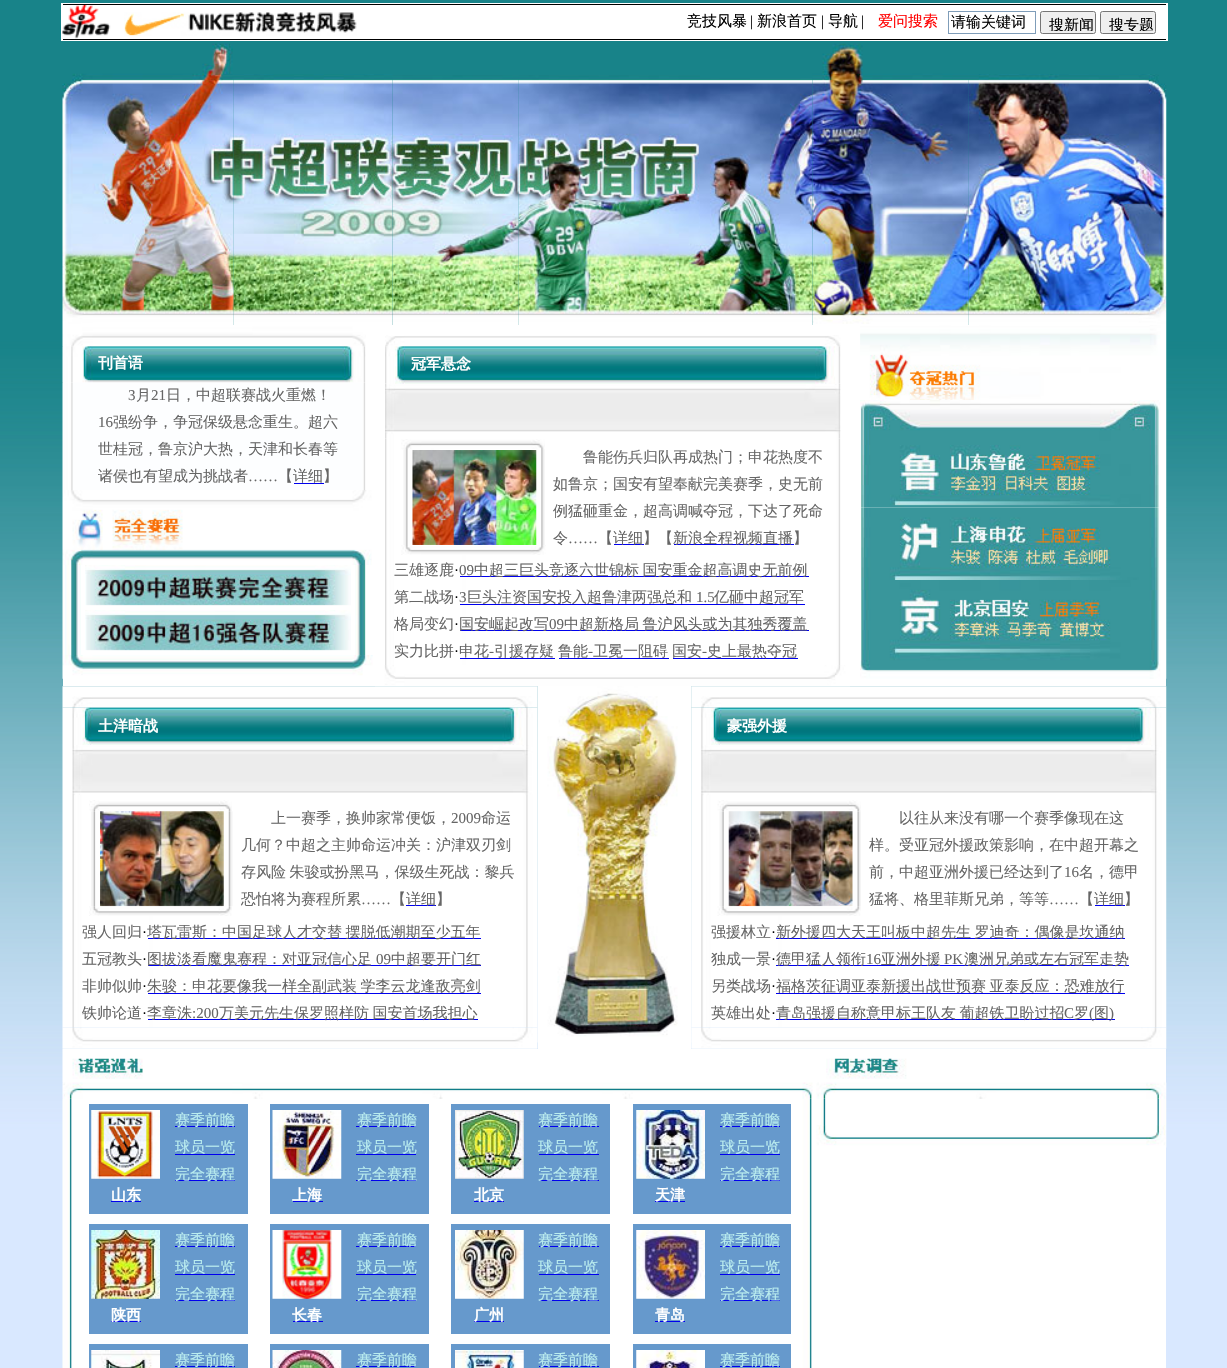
void draw(SkCanvas* canvas) {
	SkPaint paint;
	paint.setAntiAlias(true);
	auto spacedText = [&](const char* s, float x, float y, const SkFont& font, const SkPaint& ink, float letter, float word) {
		std::vector<SkGlyphID> glyphs(font.countText(s, strlen(s), SkTextEncoding::kUTF8));
		std::vector<float> xs(glyphs.size());
		font.textToGlyphs(s, strlen(s), SkTextEncoding::kUTF8, glyphs);
		font.getXPos(glyphs, xs, x);
		float extra = 0;
		for (size_t i = 0; i < glyphs.size(); i++) {
			xs[i] += extra;
			extra += letter + word * (glyphs[i] == font.unicharToGlyph(' '));
		}
		canvas->drawTextBlob(SkTextBlob::MakeFromPosHGlyphs(glyphs, xs, y, font), 0, 0, ink);
	};
	canvas->clear(0xffffffff);
	canvas->drawImageRect(SkImages::DeferredFromEncodedData(SkData::MakeFromFileName("img1.png")), SkRect::MakeXYWH(0, 0, 1227, 1368), SkSamplingOptions());
	paint.setColor(0xffffffff);
	canvas->drawRect(SkRect::MakeXYWH(61, 3, 1107, 38), paint);
	paint.setColor(0xff000000);
	canvas->drawRect(SkRect::MakeXYWH(63, 4, 1103, 1), paint);
	canvas->drawRect(SkRect::MakeXYWH(63, 39, 1103, 1), paint);
	canvas->drawImageRect(SkImages::DeferredFromEncodedData(SkData::MakeFromFileName("img2.png")), SkRect::MakeXYWH(62, 5, 49, 34), SkSamplingOptions());
	canvas->drawImageRect(SkImages::DeferredFromEncodedData(SkData::MakeFromFileName("img3.png")), SkRect::MakeXYWH(124, 12, 233, 24), SkSamplingOptions());
	SkFont f1(fontMgr->matchFamilyStyle("WenQuanYi Zen Hei", SkFontStyle(500, SkFontStyle::kNormal_Width, SkFontStyle::kUpright_Slant)), 15);
	f1.setSubpixel(true);
	canvas->drawString("竞技风暴", 687, 26, f1, paint);
	SkFont f2(fontMgr->matchFamilyStyle("Liberation Serif", SkFontStyle::Normal()), 15);
	f2.setSubpixel(true);
	canvas->drawString("|", 750, 26, f2, paint);
	canvas->drawString("新浪首页", 757, 26, f1, paint);
	canvas->drawString("|", 821, 26, f2, paint);
	canvas->drawString("导航", 828, 26, f1, paint);
	canvas->drawString("|", 861, 26, f2, paint);
	paint.setColor(0xffff0000);
	canvas->drawString("爱问搜索", 878, 26, f1, paint);
	paint.setStroke(true);
	paint.setStrokeWidth(1);
	paint.setColor(0xff7f9db9);
	canvas->drawRect(SkRect::MakeXYWH(948.5, 11.5, 87, 22), paint);
	paint.setStroke(false);
	paint.setColor(0xff000000);
	canvas->drawString("请输关键词", 951, 27, f1, paint);
	paint.setColor(0xffefefef);
	canvas->drawRoundRect(SkRect::MakeXYWH(1040.5, 11.5, 55, 22), 2, 2, paint);
	paint.setStroke(true);
	paint.setColor(0xff767676);
	canvas->drawRoundRect(SkRect::MakeXYWH(1040.5, 11.5, 55, 22), 2, 2, paint);
	canvas->save();
	canvas->clipRect(SkRect::MakeXYWH(1043, 14, 51, 17));
	paint.setStroke(false);
	paint.setColor(0xff000000);
	canvas->drawString("搜新闻", 1049, 30, f1, paint);
	canvas->restore();
	paint.setColor(0xffefefef);
	canvas->drawRoundRect(SkRect::MakeXYWH(1100.5, 11.5, 55, 22), 2, 2, paint);
	paint.setStroke(true);
	paint.setColor(0xff767676);
	canvas->drawRoundRect(SkRect::MakeXYWH(1100.5, 11.5, 55, 22), 2, 2, paint);
	canvas->save();
	canvas->clipRect(SkRect::MakeXYWH(1103, 14, 51, 17));
	paint.setStroke(false);
	paint.setColor(0xff000000);
	canvas->drawString("搜专题", 1109, 30, f1, paint);
	canvas->restore();
	canvas->drawImageRect(SkImages::DeferredFromEncodedData(SkData::MakeFromFileName("img4.png")), SkRect::MakeXYWH(62, 43, 172, 282), SkSamplingOptions());
	canvas->drawImageRect(SkImages::DeferredFromEncodedData(SkData::MakeFromFileName("img5.png")), SkRect::MakeXYWH(233, 74, 160, 251), SkSamplingOptions());
	canvas->drawImageRect(SkImages::DeferredFromEncodedData(SkData::MakeFromFileName("img6.png")), SkRect::MakeXYWH(392, 75, 127, 250), SkSamplingOptions());
	canvas->drawImageRect(SkImages::DeferredFromEncodedData(SkData::MakeFromFileName("img7.png")), SkRect::MakeXYWH(518, 75, 182, 250), SkSamplingOptions());
	canvas->drawImageRect(SkImages::DeferredFromEncodedData(SkData::MakeFromFileName("img8.png")), SkRect::MakeXYWH(700, 78, 113, 247), SkSamplingOptions());
	canvas->drawImageRect(SkImages::DeferredFromEncodedData(SkData::MakeFromFileName("img9.png")), SkRect::MakeXYWH(812, 43, 157, 282), SkSamplingOptions());
	canvas->drawImageRect(SkImages::DeferredFromEncodedData(SkData::MakeFromFileName("img10.png")), SkRect::MakeXYWH(968, 74, 199, 251), SkSamplingOptions());
	paint.setColor(0xffffffff);
	canvas->drawRect(SkRect::MakeXYWH(63, 325, 1103, 361), paint);
	canvas->drawImageRect(SkImages::DeferredFromEncodedData(SkData::MakeFromFileName("img12.png")), SkRect::MakeXYWH(62, 346, 304, 37), SkSamplingOptions());
	canvas->drawImageRect(SkImages::DeferredFromEncodedData(SkData::MakeFromFileName("img11.png")), SkRect::MakeXYWH(62, 325, 304, 22), SkSamplingOptions());
	SkFont f3(fontMgr->matchFamilyStyle("WenQuanYi Zen Hei", SkFontStyle::Bold()), 15);
	f3.setSubpixel(true);
	canvas->drawString("刊首语", 98, 368, f3, paint);
	canvas->drawImageRect(SkImages::DeferredFromEncodedData(SkData::MakeFromFileName("img13.png")), SkRect::MakeXYWH(62, 382, 304, 108), SkSamplingOptions());
	paint.setColor(0xff666666);
	canvas->drawString("3", 128, 400, f2, paint);
	canvas->drawString("月", 136, 400, f1, paint);
	canvas->drawString("21", 151, 400, f2, paint);
	canvas->drawString("日，中超联赛战火重燃！", 166, 400, f1, paint);
	canvas->drawString("16", 98, 427, f2, paint);
	canvas->drawString("强纷争，争冠保级悬念重生。超六", 113, 427, f1, paint);
	canvas->drawString("世桂冠，鲁京沪大热，天津和长春等", 98, 454, f1, paint);
	canvas->drawString("诸侯也有望成为挑战者", 98, 481, f1, paint);
	canvas->drawString("……", 248, 481, f2, paint);
	canvas->drawString("【详细】", 278, 481, f1, paint);
	paint.setColor(0xff0000ee);
	canvas->drawRect(SkRect::MakeXYWH(294, 483, 30, 1), paint);
	canvas->drawImageRect(SkImages::DeferredFromEncodedData(SkData::MakeFromFileName("img14.png")), SkRect::MakeXYWH(62, 490, 310, 75), SkSamplingOptions());
	canvas->drawImageRect(SkImages::DeferredFromEncodedData(SkData::MakeFromFileName("img15.png")), SkRect::MakeXYWH(62, 565, 19, 90), SkSamplingOptions());
	canvas->drawImageRect(SkImages::DeferredFromEncodedData(SkData::MakeFromFileName("img16.png")), SkRect::MakeXYWH(85, 565, 266, 41), SkSamplingOptions());
	canvas->drawImageRect(SkImages::DeferredFromEncodedData(SkData::MakeFromFileName("img17.png")), SkRect::MakeXYWH(85, 610, 266, 41), SkSamplingOptions());
	canvas->drawImageRect(SkImages::DeferredFromEncodedData(SkData::MakeFromFileName("img18.png")), SkRect::MakeXYWH(355, 565, 11, 90), SkSamplingOptions());
	canvas->drawImageRect(SkImages::DeferredFromEncodedData(SkData::MakeFromFileName("img19.png")), SkRect::MakeXYWH(62, 655, 311, 24), SkSamplingOptions());
	canvas->drawImageRect(SkImages::DeferredFromEncodedData(SkData::MakeFromFileName("img21.png")), SkRect::MakeXYWH(385, 346, 456, 38), SkSamplingOptions());
	canvas->drawImageRect(SkImages::DeferredFromEncodedData(SkData::MakeFromFileName("img20.png")), SkRect::MakeXYWH(385, 335, 456, 12), SkSamplingOptions());
	paint.setColor(0xffffffff);
	canvas->drawString("冠军悬念", 411, 369, f3, paint);
	canvas->drawImageRect(SkImages::DeferredFromEncodedData(SkData::MakeFromFileName("img22.png")), SkRect::MakeXYWH(385, 384, 456, 55), SkSamplingOptions());
	canvas->drawImageRect(SkImages::DeferredFromEncodedData(SkData::MakeFromFileName("img23.png")), SkRect::MakeXYWH(385, 439, 456, 226), SkSamplingOptions());
	canvas->drawImageRect(SkImages::DeferredFromEncodedData(SkData::MakeFromFileName("img24.png")), SkRect::MakeXYWH(401, 439, 144, 11), SkSamplingOptions());
	canvas->drawImageRect(SkImages::DeferredFromEncodedData(SkData::MakeFromFileName("img25.png")), SkRect::MakeXYWH(403, 450, 142, 95), SkSamplingOptions());
	canvas->drawImageRect(SkImages::DeferredFromEncodedData(SkData::MakeFromFileName("img26.png")), SkRect::MakeXYWH(412, 450, 125, 95), SkSamplingOptions());
	canvas->drawImageRect(SkImages::DeferredFromEncodedData(SkData::MakeFromFileName("img27.png")), SkRect::MakeXYWH(401, 545, 145, 10), SkSamplingOptions());
	paint.setColor(0xff666666);
	canvas->drawString("鲁能伤兵归队再成热门；申花热度不", 583, 462, f1, paint);
	canvas->drawString("如鲁京；国安有望奉献完美赛季，史无前", 553, 489, f1, paint);
	canvas->drawString("例猛砸重金，超高调喊夺冠，下达了死命", 553, 516, f1, paint);
	canvas->drawString("令", 553, 543, f1, paint);
	canvas->drawString("……", 568, 543, f2, paint);
	canvas->drawString("【", 598, 543, f1, paint);
	paint.setColor(0xff0000ee);
	canvas->drawRect(SkRect::MakeXYWH(614, 544, 30, 1), paint);
	paint.setColor(0xff666666);
	canvas->drawString("详细】【", 613, 543, f1, paint);
	paint.setColor(0xff0000ee);
	canvas->drawRect(SkRect::MakeXYWH(674, 544, 120, 1), paint);
	paint.setColor(0xff666666);
	canvas->drawString("新浪全程视频直播】", 673, 543, f1, paint);
	canvas->drawString("三雄逐鹿", 394, 575, f1, paint);
	paint.setColor(0xff000000);
	canvas->drawString("·", 454, 575, f2, paint);
	paint.setColor(0xff666666);
	canvas->drawString("09", 459, 575, f2, paint);
	paint.setColor(0xff0000ee);
	canvas->drawRect(SkRect::MakeXYWH(460, 576, 349, 1), paint);
	paint.setColor(0xff666666);
	spacedText("中超三巨头竞逐六世锦标 国安重金超高调史无前例", 474, 575, f1, paint, 0, -1);
	canvas->drawString("第二战场", 394, 602, f1, paint);
	paint.setColor(0xff000000);
	canvas->drawString("·", 454, 602, f2, paint);
	paint.setColor(0xff666666);
	canvas->drawString("3", 459, 602, f2, paint);
	paint.setColor(0xff0000ee);
	canvas->drawRect(SkRect::MakeXYWH(460, 604, 345, 1), paint);
	paint.setColor(0xff666666);
	canvas->drawString("巨头注资国安投入超鲁津两强总和", 467, 602, f1, paint);
	canvas->drawString("1.5", 696, 602, f2, paint);
	canvas->drawString("亿砸中超冠军", 714, 602, f1, paint);
	canvas->drawString("格局变幻", 394, 629, f1, paint);
	paint.setColor(0xff000000);
	canvas->drawString("·", 454, 629, f2, paint);
	paint.setColor(0xff0000ee);
	canvas->drawRect(SkRect::MakeXYWH(460, 630, 349, 1), paint);
	paint.setColor(0xff666666);
	canvas->drawString("国安崛起改写", 459, 629, f1, paint);
	canvas->drawString("09", 549, 629, f2, paint);
	spacedText("中超新格局 鲁沪风头或为其独秀覆盖", 564, 629, f1, paint, 0, -1);
	canvas->drawString("实力比拼", 394, 656, f1, paint);
	paint.setColor(0xff000000);
	canvas->drawString("·", 454, 656, f2, paint);
	paint.setColor(0xff666666);
	canvas->drawString("申花", 459, 656, f1, paint);
	canvas->drawString("-", 489, 656, f2, paint);
	paint.setColor(0xff0000ee);
	canvas->drawRect(SkRect::MakeXYWH(460, 658, 95, 1), paint);
	paint.setColor(0xff666666);
	canvas->drawString("引援存疑", 494, 656, f1, paint);
	canvas->drawString("鲁能", 558, 656, f1, paint);
	canvas->drawString("-", 588, 656, f2, paint);
	paint.setColor(0xff0000ee);
	canvas->drawRect(SkRect::MakeXYWH(559, 658, 110, 1), paint);
	paint.setColor(0xff666666);
	canvas->drawString("卫冕一阻碍", 593, 656, f1, paint);
	paint.setColor(0xff0000ee);
	canvas->drawRect(SkRect::MakeXYWH(673, 658, 125, 1), paint);
	paint.setColor(0xff666666);
	canvas->drawString("国安", 672, 656, f1, paint);
	canvas->drawString("-", 702, 656, f2, paint);
	canvas->drawString("史上最热夺冠", 707, 656, f1, paint);
	paint.setColor(0xffffffff);
	canvas->drawRect(SkRect::MakeXYWH(538, 686, 153, 363), paint);
	canvas->drawImageRect(SkImages::DeferredFromEncodedData(SkData::MakeFromFileName("img28.png")), SkRect::MakeXYWH(375, 665, 475, 22), SkSamplingOptions());
	canvas->drawImageRect(SkImages::DeferredFromEncodedData(SkData::MakeFromFileName("img29.png")), SkRect::MakeXYWH(860, 325, 307, 75), SkSamplingOptions());
	canvas->drawImageRect(SkImages::DeferredFromEncodedData(SkData::MakeFromFileName("img30.png")), SkRect::MakeXYWH(860, 400, 307, 45), SkSamplingOptions());
	canvas->drawImageRect(SkImages::DeferredFromEncodedData(SkData::MakeFromFileName("img31.png")), SkRect::MakeXYWH(860, 445, 307, 63), SkSamplingOptions());
	canvas->drawImageRect(SkImages::DeferredFromEncodedData(SkData::MakeFromFileName("img32.png")), SkRect::MakeXYWH(860, 507, 307, 73), SkSamplingOptions());
	canvas->drawImageRect(SkImages::DeferredFromEncodedData(SkData::MakeFromFileName("img33.png")), SkRect::MakeXYWH(860, 580, 307, 99), SkSamplingOptions());
	canvas->drawImageRect(SkImages::DeferredFromEncodedData(SkData::MakeFromFileName("img35.png")), SkRect::MakeXYWH(62, 707, 476, 38), SkSamplingOptions());
	canvas->drawImageRect(SkImages::DeferredFromEncodedData(SkData::MakeFromFileName("img34.png")), SkRect::MakeXYWH(62, 686, 476, 22), SkSamplingOptions());
	canvas->drawString("土洋暗战", 98, 731, f3, paint);
	canvas->drawImageRect(SkImages::DeferredFromEncodedData(SkData::MakeFromFileName("img36.png")), SkRect::MakeXYWH(62, 745, 476, 55), SkSamplingOptions());
	canvas->drawImageRect(SkImages::DeferredFromEncodedData(SkData::MakeFromFileName("img37.png")), SkRect::MakeXYWH(62, 800, 476, 228), SkSamplingOptions());
	canvas->drawImageRect(SkImages::DeferredFromEncodedData(SkData::MakeFromFileName("img39.png")), SkRect::MakeXYWH(91, 811, 142, 96), SkSamplingOptions());
	canvas->drawImageRect(SkImages::DeferredFromEncodedData(SkData::MakeFromFileName("img38.png")), SkRect::MakeXYWH(89, 800, 143, 12), SkSamplingOptions());
	canvas->drawImageRect(SkImages::DeferredFromEncodedData(SkData::MakeFromFileName("img40.png")), SkRect::MakeXYWH(100, 811, 124, 96), SkSamplingOptions());
	canvas->drawImageRect(SkImages::DeferredFromEncodedData(SkData::MakeFromFileName("img41.png")), SkRect::MakeXYWH(89, 906, 143, 10), SkSamplingOptions());
	paint.setColor(0xff666666);
	canvas->drawString("上一赛季，换帅家常便饭，", 271, 823, f1, paint);
	canvas->drawString("2009", 451, 823, f2, paint);
	canvas->drawString("命运", 481, 823, f1, paint);
	canvas->drawString("几何？中超之主帅命运冲关：沪津双刃剑", 241, 850, f1, paint);
	spacedText("存风险 朱骏或扮黑马，保级生死战：黎兵", 241, 877, f1, paint, 0, -1);
	canvas->drawString("恐怕将为赛程所累", 241, 904, f1, paint);
	canvas->drawString("……", 361, 904, f2, paint);
	canvas->drawString("【", 391, 904, f1, paint);
	paint.setColor(0xff0000ee);
	canvas->drawRect(SkRect::MakeXYWH(406, 905, 30, 1), paint);
	paint.setColor(0xff666666);
	canvas->drawString("详细】", 406, 904, f1, paint);
	canvas->drawString("强人回归", 82, 937, f1, paint);
	paint.setColor(0xff000000);
	canvas->drawString("·", 142, 937, f2, paint);
	paint.setColor(0xff0000ee);
	canvas->drawRect(SkRect::MakeXYWH(148, 938, 333, 1), paint);
	paint.setColor(0xff666666);
	spacedText("塔瓦雷斯：中国足球人才交替 摆脱低潮期至少五年", 147, 937, f1, paint, 0, -1);
	canvas->drawString("五冠教头", 82, 964, f1, paint);
	paint.setColor(0xff000000);
	canvas->drawString("·", 142, 964, f2, paint);
	paint.setColor(0xff0000ee);
	canvas->drawRect(SkRect::MakeXYWH(148, 965, 333, 1), paint);
	paint.setColor(0xff666666);
	canvas->drawString("图拔淡看魔鬼赛程：对亚冠信心足", 147, 964, f1, paint);
	canvas->drawString("09", 376, 964, f2, paint);
	canvas->drawString("中超要开门红", 391, 964, f1, paint);
	canvas->drawString("非帅似帅", 82, 991, f1, paint);
	paint.setColor(0xff000000);
	canvas->drawString("·", 142, 991, f2, paint);
	paint.setColor(0xff0000ee);
	canvas->drawRect(SkRect::MakeXYWH(148, 993, 333, 1), paint);
	paint.setColor(0xff666666);
	spacedText("朱骏：申花要像我一样全副武装 学李云龙逢敌亮剑", 147, 991, f1, paint, 0, -1);
	canvas->drawString("铁帅论道", 82, 1018, f1, paint);
	paint.setColor(0xff000000);
	canvas->drawString("·", 142, 1018, f2, paint);
	paint.setColor(0xff0000ee);
	canvas->drawRect(SkRect::MakeXYWH(148, 1019, 330, 1), paint);
	paint.setColor(0xff666666);
	canvas->drawString("李章洙", 147, 1018, f1, paint);
	canvas->drawString(":200", 192, 1018, f2, paint);
	spacedText("万美元先生保罗照样防 国安首场我担心", 219, 1018, f1, paint, 0, -1);
	canvas->drawImageRect(SkImages::DeferredFromEncodedData(SkData::MakeFromFileName("img42.png")), SkRect::MakeXYWH(62, 1027, 476, 22), SkSamplingOptions());
	canvas->drawImageRect(SkImages::DeferredFromEncodedData(SkData::MakeFromFileName("img45.png")), SkRect::MakeXYWH(691, 707, 476, 38), SkSamplingOptions());
	canvas->drawImageRect(SkImages::DeferredFromEncodedData(SkData::MakeFromFileName("img46.png")), SkRect::MakeXYWH(691, 745, 476, 55), SkSamplingOptions());
	canvas->drawImageRect(SkImages::DeferredFromEncodedData(SkData::MakeFromFileName("img47.png")), SkRect::MakeXYWH(691, 800, 476, 228), SkSamplingOptions());
	canvas->drawImageRect(SkImages::DeferredFromEncodedData(SkData::MakeFromFileName("img43.png")), SkRect::MakeXYWH(537, 686, 155, 357), SkSamplingOptions());
	canvas->drawImageRect(SkImages::DeferredFromEncodedData(SkData::MakeFromFileName("img44.png")), SkRect::MakeXYWH(691, 686, 476, 22), SkSamplingOptions());
	paint.setColor(0xffffffff);
	canvas->drawString("豪强外援", 727, 731, f3, paint);
	canvas->drawImageRect(SkImages::DeferredFromEncodedData(SkData::MakeFromFileName("img48.png")), SkRect::MakeXYWH(717, 800, 144, 11), SkSamplingOptions());
	canvas->drawImageRect(SkImages::DeferredFromEncodedData(SkData::MakeFromFileName("img49.png")), SkRect::MakeXYWH(719, 811, 142, 96), SkSamplingOptions());
	canvas->drawImageRect(SkImages::DeferredFromEncodedData(SkData::MakeFromFileName("img50.png")), SkRect::MakeXYWH(728, 811, 125, 96), SkSamplingOptions());
	canvas->drawImageRect(SkImages::DeferredFromEncodedData(SkData::MakeFromFileName("img51.png")), SkRect::MakeXYWH(717, 906, 144, 10), SkSamplingOptions());
	paint.setColor(0xff666666);
	canvas->drawString("以往从来没有哪一个赛季像现在这", 899, 823, f1, paint);
	canvas->drawString("样。受亚冠外援政策影响，在中超开幕之", 869, 850, f1, paint);
	canvas->drawString("前，中超亚洲外援已经达到了", 869, 877, f1, paint);
	canvas->drawString("16", 1064, 877, f2, paint);
	canvas->drawString("名，德甲", 1079, 877, f1, paint);
	canvas->drawString("猛将、格里菲斯兄弟，等等", 869, 904, f1, paint);
	canvas->drawString("……", 1049, 904, f2, paint);
	canvas->drawString("【", 1079, 904, f1, paint);
	paint.setColor(0xff0000ee);
	canvas->drawRect(SkRect::MakeXYWH(1095, 905, 30, 1), paint);
	paint.setColor(0xff666666);
	canvas->drawString("详细】", 1094, 904, f1, paint);
	canvas->drawString("强援林立", 711, 937, f1, paint);
	paint.setColor(0xff000000);
	canvas->drawString("·", 771, 937, f2, paint);
	paint.setColor(0xff0000ee);
	canvas->drawRect(SkRect::MakeXYWH(776, 938, 349, 1), paint);
	paint.setColor(0xff666666);
	spacedText("新外援四大天王叫板中超先生 罗迪奇：偶像是坎通纳", 776, 937, f1, paint, 0, -1);
	canvas->drawString("独成一景", 711, 964, f1, paint);
	paint.setColor(0xff000000);
	canvas->drawString("·", 771, 964, f2, paint);
	paint.setColor(0xff0000ee);
	canvas->drawRect(SkRect::MakeXYWH(776, 965, 353, 1), paint);
	paint.setColor(0xff666666);
	canvas->drawString("德甲猛人领衔", 776, 964, f1, paint);
	canvas->drawString("16", 866, 964, f2, paint);
	canvas->drawString("亚洲外援", 881, 964, f1, paint);
	canvas->drawString("PK", 944, 964, f2, paint);
	canvas->drawString("澳洲兄弟或左右冠军走势", 964, 964, f1, paint);
	canvas->drawString("另类战场", 711, 991, f1, paint);
	paint.setColor(0xff000000);
	canvas->drawString("·", 771, 991, f2, paint);
	paint.setColor(0xff0000ee);
	canvas->drawRect(SkRect::MakeXYWH(776, 993, 349, 1), paint);
	paint.setColor(0xff666666);
	spacedText("福格茨征调亚泰新援出战世预赛 亚泰反应：恐难放行", 776, 991, f1, paint, 0, -1);
	canvas->drawString("英雄出处", 711, 1018, f1, paint);
	paint.setColor(0xff000000);
	canvas->drawString("·", 771, 1018, f2, paint);
	paint.setColor(0xff0000ee);
	canvas->drawRect(SkRect::MakeXYWH(776, 1019, 339, 1), paint);
	paint.setColor(0xff666666);
	spacedText("青岛强援自称意甲标王队友 葡超铁卫盼过招", 776, 1018, f1, paint, 0, -1);
	canvas->drawString("C", 1064, 1018, f2, paint);
	canvas->drawString("罗", 1074, 1018, f1, paint);
	canvas->drawString("(", 1089, 1018, f2, paint);
	canvas->drawString("图", 1094, 1018, f1, paint);
	canvas->drawString(")", 1109, 1018, f2, paint);
	canvas->drawImageRect(SkImages::DeferredFromEncodedData(SkData::MakeFromFileName("img52.png")), SkRect::MakeXYWH(691, 1027, 476, 22), SkSamplingOptions());
	paint.setColor(0xffffffff);
	canvas->drawRect(SkRect::MakeXYWH(63, 1049, 1103, 319), paint);
	canvas->drawImageRect(SkImages::DeferredFromEncodedData(SkData::MakeFromFileName("img53.png")), SkRect::MakeXYWH(826, 1058, 81, 21), SkSamplingOptions());
	canvas->drawImageRect(SkImages::DeferredFromEncodedData(SkData::MakeFromFileName("img55.png")), SkRect::MakeXYWH(821, 1098, 346, 27), SkSamplingOptions());
	canvas->drawImageRect(SkImages::DeferredFromEncodedData(SkData::MakeFromFileName("img54.png")), SkRect::MakeXYWH(816, 1082, 351, 17), SkSamplingOptions());
	canvas->drawImageRect(SkImages::DeferredFromEncodedData(SkData::MakeFromFileName("img56.png")), SkRect::MakeXYWH(816, 1125, 351, 23), SkSamplingOptions());
	canvas->drawImageRect(SkImages::DeferredFromEncodedData(SkData::MakeFromFileName("img57.png")), SkRect::MakeXYWH(62, 1049, 81, 34), SkSamplingOptions());
	canvas->drawImageRect(SkImages::DeferredFromEncodedData(SkData::MakeFromFileName("img59.png")), SkRect::MakeXYWH(62, 1098, 750, 270), SkSamplingOptions());
	canvas->drawImageRect(SkImages::DeferredFromEncodedData(SkData::MakeFromFileName("img58.png")), SkRect::MakeXYWH(62, 1082, 751, 17), SkSamplingOptions());
	paint.setColor(0xff6699cc);
	canvas->drawRect(SkRect::MakeXYWH(89, 1104, 159, 110), paint);
	paint.setColor(0xff0000ee);
	canvas->drawRect(SkRect::MakeXYWH(175, 1126, 60, 1), paint);
	paint.setColor(0xffbaedef);
	canvas->drawString("赛季前瞻", 175, 1125, f1, paint);
	paint.setColor(0xff0000ee);
	canvas->drawRect(SkRect::MakeXYWH(175, 1154, 60, 1), paint);
	paint.setColor(0xffbaedef);
	canvas->drawString("球员一览", 175, 1152, f1, paint);
	paint.setColor(0xff0000ee);
	canvas->drawRect(SkRect::MakeXYWH(175, 1180, 60, 1), paint);
	paint.setColor(0xffbaedef);
	canvas->drawString("完全赛程", 175, 1179, f1, paint);
	canvas->drawImageRect(SkImages::DeferredFromEncodedData(SkData::MakeFromFileName("img60.png")), SkRect::MakeXYWH(91, 1110, 69, 69), SkSamplingOptions());
	paint.setColor(0xff0000ee);
	canvas->drawRect(SkRect::MakeXYWH(111, 1201, 30, 1), paint);
	paint.setColor(0xffffffff);
	canvas->drawString("山东", 111, 1200, f3, paint);
	paint.setColor(0xff6699cc);
	canvas->drawRect(SkRect::MakeXYWH(270, 1104, 159, 110), paint);
	paint.setColor(0xff0000ee);
	canvas->drawRect(SkRect::MakeXYWH(356, 1126, 60, 1), paint);
	paint.setColor(0xffbaedef);
	canvas->drawString("赛季前瞻", 357, 1125, f1, paint);
	paint.setColor(0xff0000ee);
	canvas->drawRect(SkRect::MakeXYWH(356, 1154, 60, 1), paint);
	paint.setColor(0xffbaedef);
	canvas->drawString("球员一览", 357, 1152, f1, paint);
	paint.setColor(0xff0000ee);
	canvas->drawRect(SkRect::MakeXYWH(356, 1180, 60, 1), paint);
	paint.setColor(0xffbaedef);
	canvas->drawString("完全赛程", 357, 1179, f1, paint);
	canvas->drawImageRect(SkImages::DeferredFromEncodedData(SkData::MakeFromFileName("img61.png")), SkRect::MakeXYWH(272, 1110, 70, 69), SkSamplingOptions());
	paint.setColor(0xff0000ee);
	canvas->drawRect(SkRect::MakeXYWH(293, 1201, 30, 1), paint);
	paint.setColor(0xffffffff);
	canvas->drawString("上海", 292, 1200, f3, paint);
	paint.setColor(0xff6699cc);
	canvas->drawRect(SkRect::MakeXYWH(451, 1104, 159, 110), paint);
	paint.setColor(0xff0000ee);
	canvas->drawRect(SkRect::MakeXYWH(539, 1126, 60, 1), paint);
	paint.setColor(0xffbaedef);
	canvas->drawString("赛季前瞻", 538, 1125, f1, paint);
	paint.setColor(0xff0000ee);
	canvas->drawRect(SkRect::MakeXYWH(539, 1154, 60, 1), paint);
	paint.setColor(0xffbaedef);
	canvas->drawString("球员一览", 538, 1152, f1, paint);
	paint.setColor(0xff0000ee);
	canvas->drawRect(SkRect::MakeXYWH(539, 1180, 60, 1), paint);
	paint.setColor(0xffbaedef);
	canvas->drawString("完全赛程", 538, 1179, f1, paint);
	canvas->drawImageRect(SkImages::DeferredFromEncodedData(SkData::MakeFromFileName("img62.png")), SkRect::MakeXYWH(455, 1110, 69, 69), SkSamplingOptions());
	paint.setColor(0xff0000ee);
	canvas->drawRect(SkRect::MakeXYWH(474, 1201, 30, 1), paint);
	paint.setColor(0xffffffff);
	canvas->drawString("北京", 474, 1200, f3, paint);
	paint.setColor(0xff6699cc);
	canvas->drawRect(SkRect::MakeXYWH(633, 1104, 158, 110), paint);
	paint.setColor(0xff0000ee);
	canvas->drawRect(SkRect::MakeXYWH(720, 1126, 60, 1), paint);
	paint.setColor(0xffbaedef);
	canvas->drawString("赛季前瞻", 720, 1125, f1, paint);
	paint.setColor(0xff0000ee);
	canvas->drawRect(SkRect::MakeXYWH(720, 1154, 60, 1), paint);
	paint.setColor(0xffbaedef);
	canvas->drawString("球员一览", 720, 1152, f1, paint);
	paint.setColor(0xff0000ee);
	canvas->drawRect(SkRect::MakeXYWH(720, 1180, 60, 1), paint);
	paint.setColor(0xffbaedef);
	canvas->drawString("完全赛程", 720, 1179, f1, paint);
	canvas->drawImageRect(SkImages::DeferredFromEncodedData(SkData::MakeFromFileName("img63.png")), SkRect::MakeXYWH(636, 1110, 69, 69), SkSamplingOptions());
	paint.setColor(0xff0000ee);
	canvas->drawRect(SkRect::MakeXYWH(655, 1201, 30, 1), paint);
	paint.setColor(0xffffffff);
	canvas->drawString("天津", 655, 1200, f3, paint);
	paint.setColor(0xff6699cc);
	canvas->drawRect(SkRect::MakeXYWH(89, 1224, 159, 110), paint);
	paint.setColor(0xff0000ee);
	canvas->drawRect(SkRect::MakeXYWH(175, 1246, 60, 1), paint);
	paint.setColor(0xffbaedef);
	canvas->drawString("赛季前瞻", 175, 1245, f1, paint);
	paint.setColor(0xff0000ee);
	canvas->drawRect(SkRect::MakeXYWH(175, 1274, 60, 1), paint);
	paint.setColor(0xffbaedef);
	canvas->drawString("球员一览", 175, 1272, f1, paint);
	paint.setColor(0xff0000ee);
	canvas->drawRect(SkRect::MakeXYWH(175, 1300, 60, 1), paint);
	paint.setColor(0xffbaedef);
	canvas->drawString("完全赛程", 175, 1299, f1, paint);
	canvas->drawImageRect(SkImages::DeferredFromEncodedData(SkData::MakeFromFileName("img64.png")), SkRect::MakeXYWH(91, 1230, 69, 69), SkSamplingOptions());
	paint.setColor(0xff0000ee);
	canvas->drawRect(SkRect::MakeXYWH(111, 1321, 30, 1), paint);
	paint.setColor(0xffffffff);
	canvas->drawString("陕西", 111, 1320, f3, paint);
	paint.setColor(0xff6699cc);
	canvas->drawRect(SkRect::MakeXYWH(270, 1224, 159, 110), paint);
	paint.setColor(0xff0000ee);
	canvas->drawRect(SkRect::MakeXYWH(356, 1246, 60, 1), paint);
	paint.setColor(0xffbaedef);
	canvas->drawString("赛季前瞻", 357, 1245, f1, paint);
	paint.setColor(0xff0000ee);
	canvas->drawRect(SkRect::MakeXYWH(356, 1274, 60, 1), paint);
	paint.setColor(0xffbaedef);
	canvas->drawString("球员一览", 357, 1272, f1, paint);
	paint.setColor(0xff0000ee);
	canvas->drawRect(SkRect::MakeXYWH(356, 1300, 60, 1), paint);
	paint.setColor(0xffbaedef);
	canvas->drawString("完全赛程", 357, 1299, f1, paint);
	canvas->drawImageRect(SkImages::DeferredFromEncodedData(SkData::MakeFromFileName("img65.png")), SkRect::MakeXYWH(272, 1230, 70, 69), SkSamplingOptions());
	paint.setColor(0xff0000ee);
	canvas->drawRect(SkRect::MakeXYWH(293, 1321, 30, 1), paint);
	paint.setColor(0xffffffff);
	canvas->drawString("长春", 292, 1320, f3, paint);
	paint.setColor(0xff6699cc);
	canvas->drawRect(SkRect::MakeXYWH(451, 1224, 159, 110), paint);
	paint.setColor(0xff0000ee);
	canvas->drawRect(SkRect::MakeXYWH(539, 1246, 60, 1), paint);
	paint.setColor(0xffbaedef);
	canvas->drawString("赛季前瞻", 538, 1245, f1, paint);
	paint.setColor(0xff0000ee);
	canvas->drawRect(SkRect::MakeXYWH(539, 1274, 60, 1), paint);
	paint.setColor(0xffbaedef);
	canvas->drawString("球员一览", 538, 1272, f1, paint);
	paint.setColor(0xff0000ee);
	canvas->drawRect(SkRect::MakeXYWH(539, 1300, 60, 1), paint);
	paint.setColor(0xffbaedef);
	canvas->drawString("完全赛程", 538, 1299, f1, paint);
	canvas->drawImageRect(SkImages::DeferredFromEncodedData(SkData::MakeFromFileName("img66.png")), SkRect::MakeXYWH(455, 1230, 69, 69), SkSamplingOptions());
	paint.setColor(0xff0000ee);
	canvas->drawRect(SkRect::MakeXYWH(474, 1321, 30, 1), paint);
	paint.setColor(0xffffffff);
	canvas->drawString("广州", 474, 1320, f3, paint);
	paint.setColor(0xff6699cc);
	canvas->drawRect(SkRect::MakeXYWH(633, 1224, 158, 110), paint);
	paint.setColor(0xff0000ee);
	canvas->drawRect(SkRect::MakeXYWH(720, 1246, 60, 1), paint);
	paint.setColor(0xffbaedef);
	canvas->drawString("赛季前瞻", 720, 1245, f1, paint);
	paint.setColor(0xff0000ee);
	canvas->drawRect(SkRect::MakeXYWH(720, 1274, 60, 1), paint);
	paint.setColor(0xffbaedef);
	canvas->drawString("球员一览", 720, 1272, f1, paint);
	paint.setColor(0xff0000ee);
	canvas->drawRect(SkRect::MakeXYWH(720, 1300, 60, 1), paint);
	paint.setColor(0xffbaedef);
	canvas->drawString("完全赛程", 720, 1299, f1, paint);
	canvas->drawImageRect(SkImages::DeferredFromEncodedData(SkData::MakeFromFileName("img67.png")), SkRect::MakeXYWH(636, 1230, 69, 69), SkSamplingOptions());
	paint.setColor(0xff0000ee);
	canvas->drawRect(SkRect::MakeXYWH(655, 1321, 30, 1), paint);
	paint.setColor(0xffffffff);
	canvas->drawString("青岛", 655, 1320, f3, paint);
	paint.setColor(0xff6699cc);
	canvas->drawRect(SkRect::MakeXYWH(89, 1344, 159, 24), paint);
	canvas->drawImageRect(SkImages::DeferredFromEncodedData(SkData::MakeFromFileName("img68.png")), SkRect::MakeXYWH(91, 1350, 69, 18), SkSamplingOptions());
	paint.setColor(0xff0000ee);
	canvas->drawRect(SkRect::MakeXYWH(175, 1366, 60, 1), paint);
	paint.setColor(0xffbaedef);
	canvas->drawString("赛季前瞻", 175, 1365, f1, paint);
	paint.setColor(0xff6699cc);
	canvas->drawRect(SkRect::MakeXYWH(270, 1344, 159, 24), paint);
	canvas->drawImageRect(SkImages::DeferredFromEncodedData(SkData::MakeFromFileName("img69.png")), SkRect::MakeXYWH(272, 1350, 70, 18), SkSamplingOptions());
	paint.setColor(0xff0000ee);
	canvas->drawRect(SkRect::MakeXYWH(356, 1366, 60, 1), paint);
	paint.setColor(0xffbaedef);
	canvas->drawString("赛季前瞻", 357, 1365, f1, paint);
	paint.setColor(0xff6699cc);
	canvas->drawRect(SkRect::MakeXYWH(451, 1344, 159, 24), paint);
	canvas->drawImageRect(SkImages::DeferredFromEncodedData(SkData::MakeFromFileName("img70.png")), SkRect::MakeXYWH(455, 1350, 69, 18), SkSamplingOptions());
	paint.setColor(0xff0000ee);
	canvas->drawRect(SkRect::MakeXYWH(539, 1366, 60, 1), paint);
	paint.setColor(0xffbaedef);
	canvas->drawString("赛季前瞻", 538, 1365, f1, paint);
	paint.setColor(0xff6699cc);
	canvas->drawRect(SkRect::MakeXYWH(633, 1344, 158, 24), paint);
	canvas->drawImageRect(SkImages::DeferredFromEncodedData(SkData::MakeFromFileName("img71.png")), SkRect::MakeXYWH(636, 1350, 69, 18), SkSamplingOptions());
	paint.setColor(0xff0000ee);
	canvas->drawRect(SkRect::MakeXYWH(720, 1366, 60, 1), paint);
	paint.setColor(0xffbaedef);
	canvas->drawString("赛季前瞻", 720, 1365, f1, paint);
}
